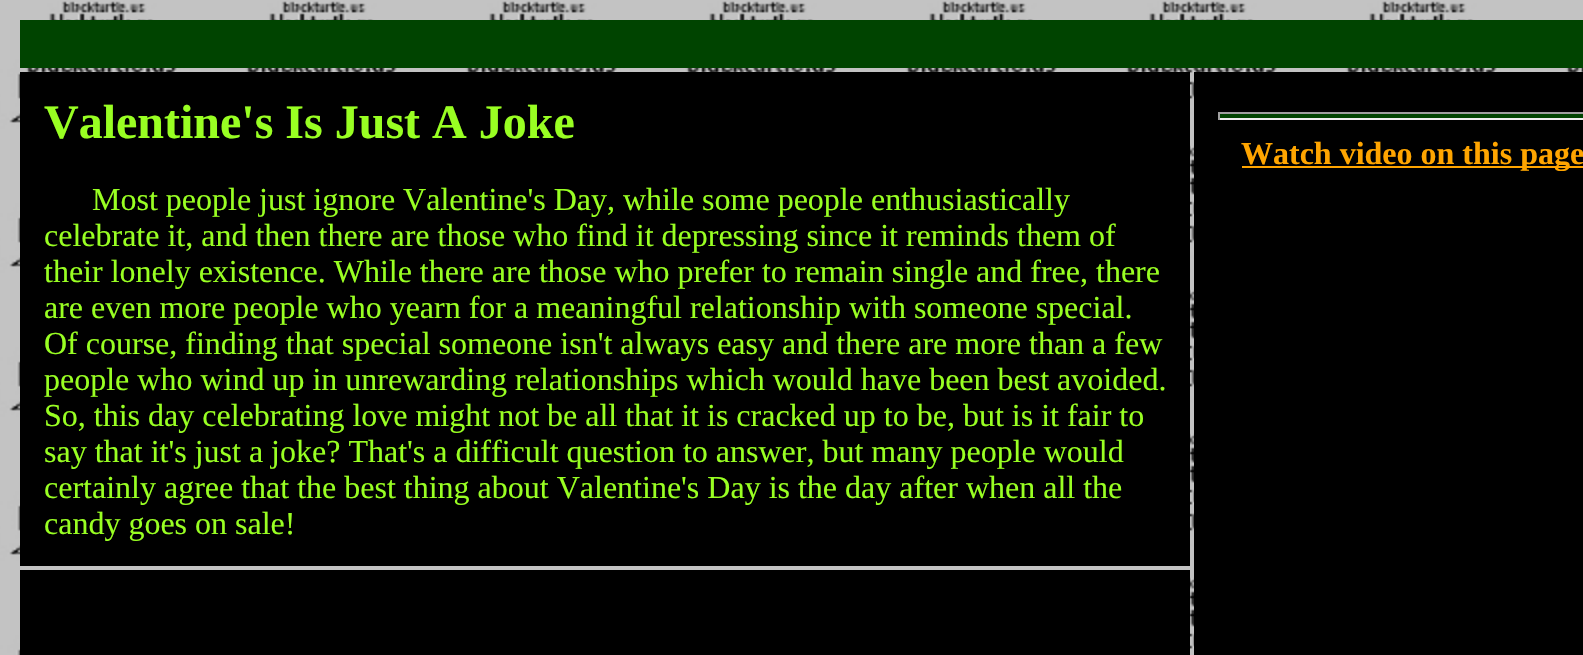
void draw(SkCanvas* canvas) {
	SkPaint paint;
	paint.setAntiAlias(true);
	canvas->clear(0xffffffff);
	canvas->drawImageRect(SkImages::DeferredFromEncodedData(SkData::MakeFromFileName("img1.png")), SkRect::MakeXYWH(0, 0, 1583, 655), SkSamplingOptions());
	paint.setColor(0xff004400);
	canvas->drawRect(SkRect::MakeXYWH(20, 20, 1563, 48), paint);
	paint.setColor(0xff000000);
	canvas->drawRect(SkRect::MakeXYWH(20, 72, 1170, 494), paint);
	SkFont f1(fontMgr->matchFamilyStyle("Liberation Serif", SkFontStyle::Bold()), 48);
	f1.setSubpixel(true);
	paint.setColor(0xff99ff22);
	canvas->drawString("Valentine's Is Just A Joke", 44, 138, f1, paint);
	SkFont f2(fontMgr->matchFamilyStyle("Liberation Serif", SkFontStyle::Normal()), 32);
	f2.setSubpixel(true);
	canvas->drawString("Most people just ignore Valentine's Day, while some people enthusiastically", 92, 210, f2, paint);
	canvas->drawString("celebrate it, and then there are those who find it depressing since it reminds them of", 44, 246, f2, paint);
	canvas->drawString("their lonely existence. While there are those who prefer to remain single and free, there", 44, 282, f2, paint);
	canvas->drawString("are even more people who yearn for a meaningful relationship with someone special.", 44, 318, f2, paint);
	canvas->drawString("Of course, finding that special someone isn't always easy and there are more than a few", 44, 354, f2, paint);
	canvas->drawString("people who wind up in unrewarding relationships which would have been best avoided.", 44, 390, f2, paint);
	canvas->drawString("So, this day celebrating love might not be all that it is cracked up to be, but is it fair to", 44, 426, f2, paint);
	canvas->drawString("say that it's just a joke? That's a difficult question to answer, but many people would", 44, 462, f2, paint);
	canvas->drawString("certainly agree that the best thing about Valentine's Day is the day after when all the", 44, 498, f2, paint);
	canvas->drawString("candy goes on sale!", 44, 534, f2, paint);
	paint.setColor(0xff000000);
	canvas->drawRect(SkRect::MakeXYWH(1194, 72, 389, 583), paint);
	paint.setColor(0xff004400);
	canvas->drawRect(SkRect::MakeXYWH(1218, 114, 365, 4), paint);
	paint.setColor(0xff9f9f9f);
	canvas->drawRect(SkRect::MakeXYWH(1218, 112, 365, 2), paint);
	paint.setColor(0xffeeeeee);
	canvas->drawRect(SkRect::MakeXYWH(1218, 118, 365, 2), paint);
	paint.setColor(0xff9f9f9f);
	canvas->drawRect(SkRect::MakeXYWH(1218, 112, 2, 8), paint);
	paint.setColor(0xffffa500);
	canvas->drawRect(SkRect::MakeXYWH(1242, 166, 341, 2), paint);
	SkFont f3(fontMgr->matchFamilyStyle("Liberation Serif", SkFontStyle::Bold()), 32);
	f3.setSubpixel(true);
	canvas->drawString("Watch video on this page", 1241, 164, f3, paint);
	paint.setColor(0xff000000);
	canvas->drawRect(SkRect::MakeXYWH(20, 570, 1170, 85), paint);
}
